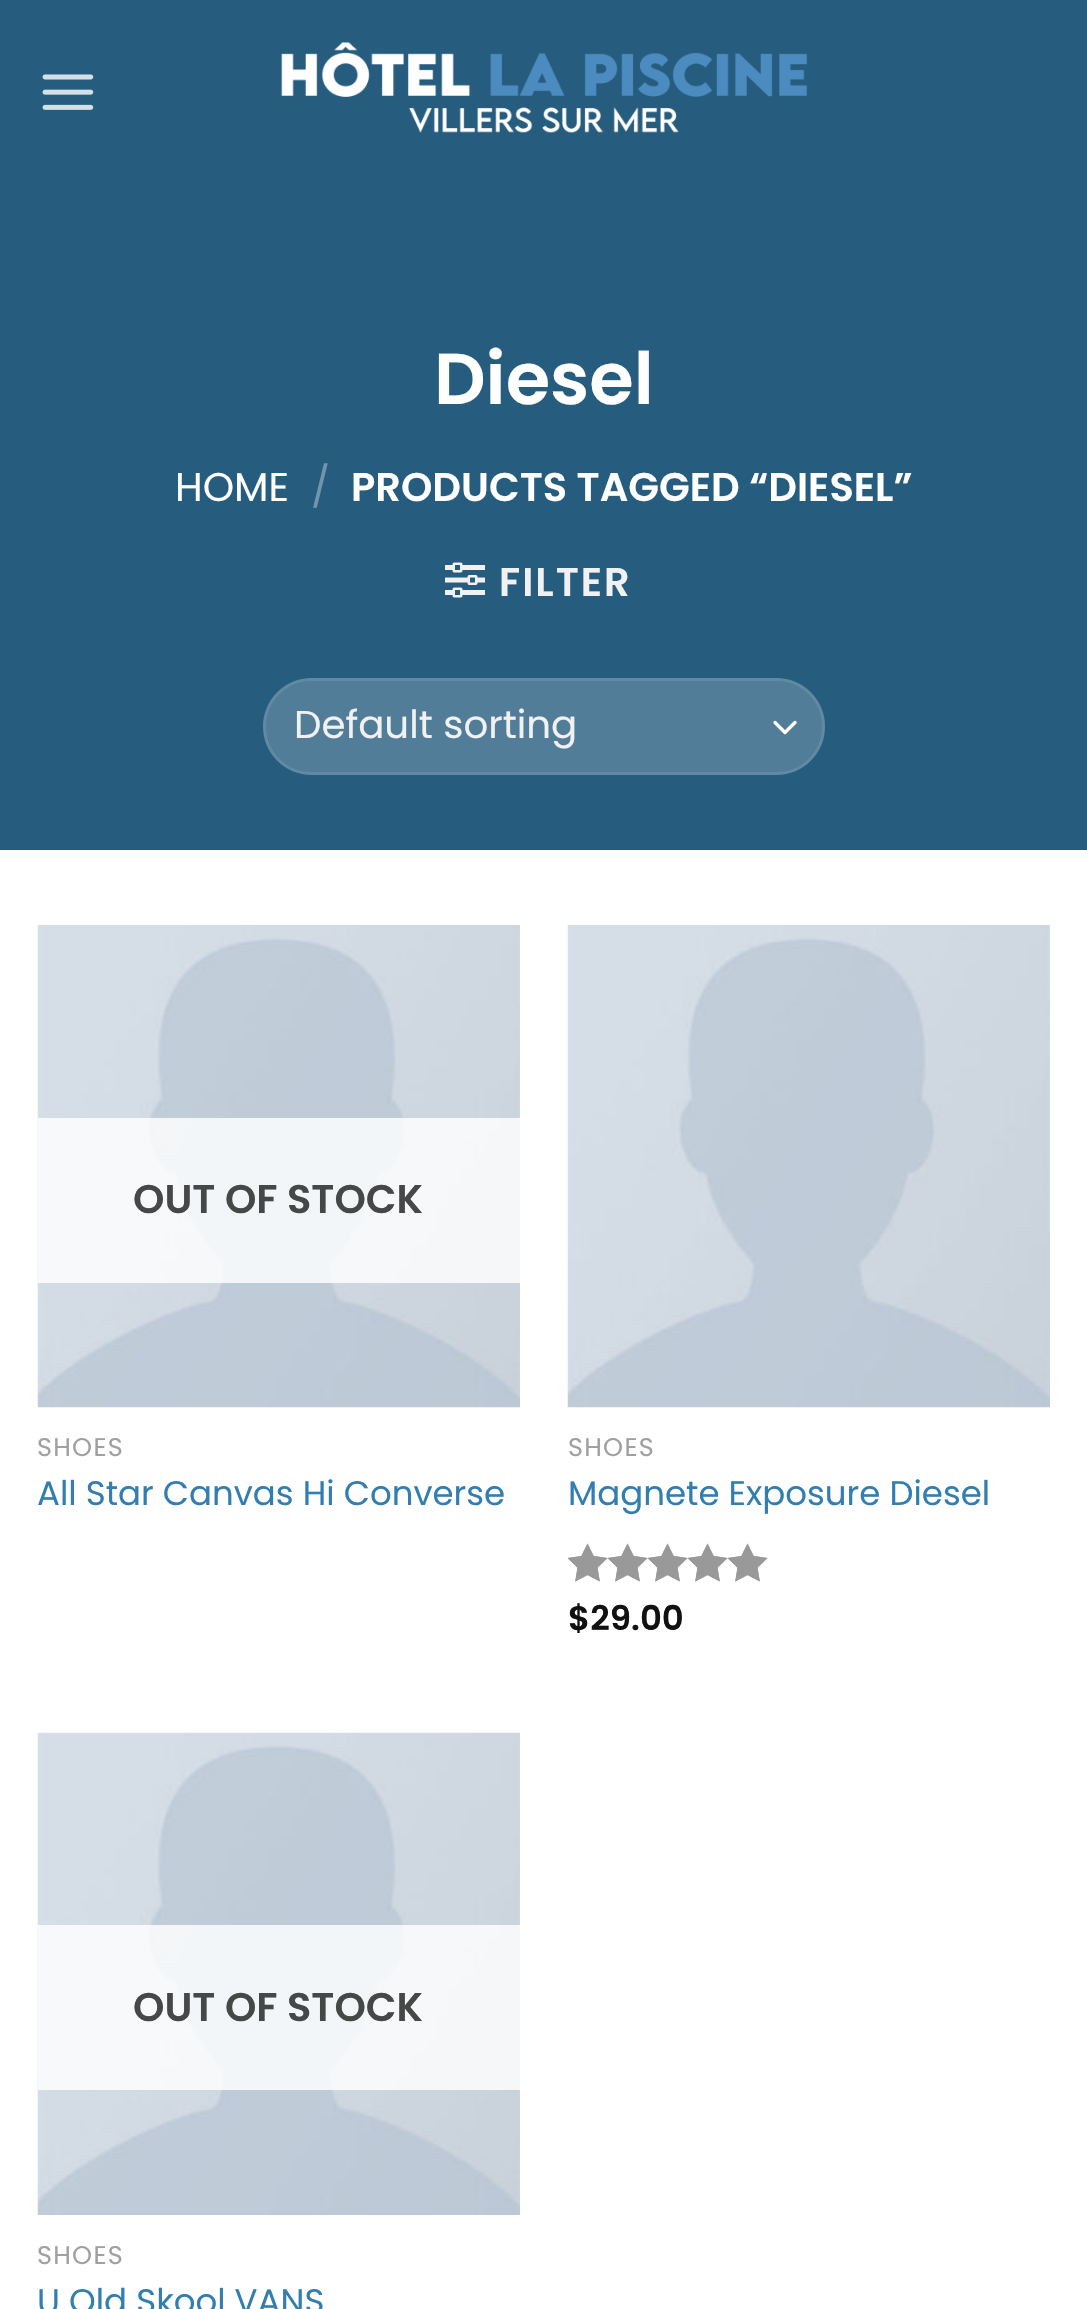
void draw(SkCanvas* canvas) {
	SkPaint paint;
	paint.setAntiAlias(true);
	auto spacedText = [&](const char* s, float x, float y, const SkFont& font, const SkPaint& ink, float letter, float word) {
		std::vector<SkGlyphID> glyphs(font.countText(s, strlen(s), SkTextEncoding::kUTF8));
		std::vector<float> xs(glyphs.size());
		font.textToGlyphs(s, strlen(s), SkTextEncoding::kUTF8, glyphs);
		font.getXPos(glyphs, xs, x);
		float extra = 0;
		for (size_t i = 0; i < glyphs.size(); i++) {
			xs[i] += extra;
			extra += letter + word * (glyphs[i] == font.unicharToGlyph(' '));
		}
		canvas->drawTextBlob(SkTextBlob::MakeFromPosHGlyphs(glyphs, xs, y, font), 0, 0, ink);
	};
	auto svgPath = [&](const char* data, bool evenOdd = false) {
		SkPath result = *SkParsePath::FromSVGString(data);
		if (evenOdd) result.setFillType(SkPathFillType::kEvenOdd);
		return result;
	};
	canvas->clear(0xffffffff);
	paint.setColor(0xff265c7e);
	canvas->drawRect(SkRect::MakeXYWH(0, 0, 1087, 850), paint);
	canvas->drawImageRect(SkImages::DeferredFromEncodedData(SkData::MakeFromFileName("img1.png")), SkRect::MakeXYWH(42, 74, 52, 36), SkSamplingOptions());
	canvas->drawImageRect(SkImages::DeferredFromEncodedData(SkData::MakeFromFileName("img2.png")), SkRect::MakeXYWH(281, 42, 527, 91), SkSamplingOptions());
	SkFont f1(fontMgr->matchFamilyStyle("Poppins", SkFontStyle(600, SkFontStyle::kNormal_Width, SkFontStyle::kUpright_Slant)), 72);
	f1.setSubpixel(true);
	paint.setColor(0xffffffff);
	canvas->drawString("Diesel", 434, 404, f1, paint);
	SkFont f2(fontMgr->matchFamilyStyle("Poppins", SkFontStyle::Normal()), 40);
	f2.setSubpixel(true);
	canvas->drawString("HOME", 175, 501, f2, paint);
	paint.setColor(0xff7295ab);
	canvas->drawString("/", 311, 501, f2, paint);
	SkFont f3(fontMgr->matchFamilyStyle("Poppins", SkFontStyle(600, SkFontStyle::kNormal_Width, SkFontStyle::kUpright_Slant)), 40);
	f3.setSubpixel(true);
	paint.setColor(0xffffffff);
	canvas->drawString("PRODUCTS TAGGED “DIESEL”", 351, 501, f3, paint);
	canvas->drawImageRect(SkImages::DeferredFromEncodedData(SkData::MakeFromFileName("img3.png")), SkRect::MakeXYWH(445, 562, 40, 36), SkSamplingOptions());
	paint.setColor(0xfff1f1f1);
	spacedText("FILTER", 499, 596, f3, paint, 2, 0);
	paint.setColor(0xff517d98);
	canvas->drawRoundRect(SkRect::MakeXYWH(263, 678, 562, 97), 48.5, 48.5, paint);
	paint.setStroke(true);
	paint.setStrokeWidth(3.3);
	paint.setStrokeCap(SkPaint::kRound_Cap);
	paint.setStrokeJoin(SkPaint::kRound_Join);
	paint.setColor(0xffffffff);
	canvas->drawPath(svgPath("M775 722.5L785 732.5L795 722.5"), paint);
	paint.setStrokeWidth(3);
	paint.setStrokeCap(SkPaint::kButt_Cap);
	paint.setStrokeJoin(SkPaint::kMiter_Join);
	paint.setColor(0x17ffffff);
	canvas->drawRoundRect(SkRect::MakeXYWH(264.5, 679.5, 559, 94), 47, 47, paint);
	SkFont f4(fontMgr->matchFamilyStyle("Poppins", SkFontStyle::Normal()), 38.75);
	f4.setSubpixel(true);
	paint.setStroke(false);
	paint.setColor(0xfff1f1f1);
	canvas->drawString("Default sorting", 294, 738, f4, paint);
	canvas->drawImageRect(SkImages::DeferredFromEncodedData(SkData::MakeFromFileName("img4.png")), SkRect::MakeXYWH(37, 925, 483, 483), SkSamplingOptions());
	paint.setColor(0xcfffffff);
	canvas->drawRect(SkRect::MakeXYWH(38, 1118, 482, 165), paint);
	paint.setColor(0xff464747);
	canvas->drawString("OUT OF STOCK", 133, 1213, f3, paint);
	SkFont f5(fontMgr->matchFamilyStyle("Poppins", SkFontStyle::Normal()), 25.5);
	f5.setSubpixel(true);
	paint.setColor(0xffa0a0a0);
	spacedText("SHOES", 37, 1456, f5, paint, 1.25, 0);
	SkFont f6(fontMgr->matchFamilyStyle("Poppins", SkFontStyle::Normal()), 34);
	f6.setSubpixel(true);
	paint.setColor(0xff327eb1);
	canvas->drawString("All Star Canvas Hi Converse", 37, 1505, f6, paint);
	canvas->drawImageRect(SkImages::DeferredFromEncodedData(SkData::MakeFromFileName("img4.png")), SkRect::MakeXYWH(567, 925, 483, 483), SkSamplingOptions());
	paint.setColor(0xffa0a0a0);
	spacedText("SHOES", 568, 1456, f5, paint, 1.25, 0);
	paint.setColor(0xff327eb1);
	canvas->drawString("Magnete Exposure Diesel", 568, 1505, f6, paint);
	canvas->drawImageRect(SkImages::DeferredFromEncodedData(SkData::MakeFromFileName("img5.png")), SkRect::MakeXYWH(568, 1543, 200, 39), SkSamplingOptions());
	canvas->drawImageRect(SkImages::DeferredFromEncodedData(SkData::MakeFromFileName("img6.png")), SkRect::MakeXYWH(568, 1543, 200, 39), SkSamplingOptions());
	SkFont f7(fontMgr->matchFamilyStyle("Poppins", SkFontStyle(600, SkFontStyle::kNormal_Width, SkFontStyle::kUpright_Slant)), 34);
	f7.setSubpixel(true);
	paint.setColor(0xff111111);
	canvas->drawString("$29.00", 568, 1630, f7, paint);
	canvas->drawImageRect(SkImages::DeferredFromEncodedData(SkData::MakeFromFileName("img7.png")), SkRect::MakeXYWH(37, 1732, 483, 483), SkSamplingOptions());
	paint.setColor(0xcfffffff);
	canvas->drawRect(SkRect::MakeXYWH(38, 1925, 482, 165), paint);
	paint.setColor(0xff464747);
	canvas->drawString("OUT OF STOCK", 133, 2021, f3, paint);
	paint.setColor(0xffa0a0a0);
	spacedText("SHOES", 37, 2264, f5, paint, 1.25, 0);
	paint.setColor(0xff327eb1);
	canvas->drawString("U Old Skool VANS", 37, 2313, f6, paint);
}
